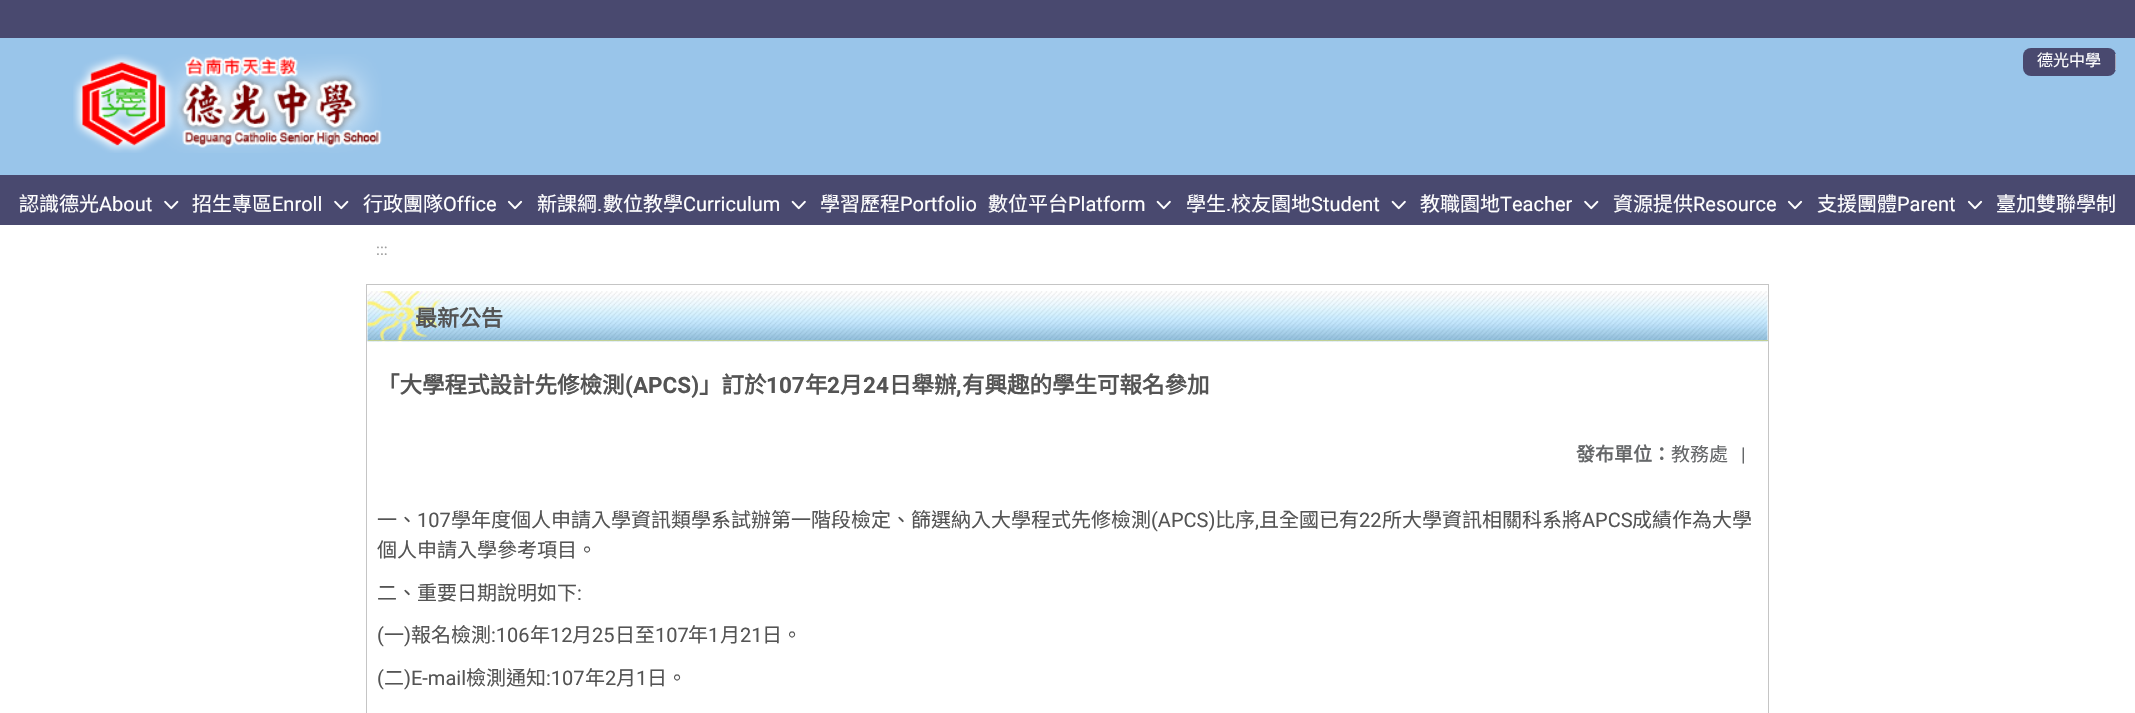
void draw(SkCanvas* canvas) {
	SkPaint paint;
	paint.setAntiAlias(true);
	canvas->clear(0xffffffff);
	paint.setColor(0xff99c5ea);
	canvas->drawRect(SkRect::MakeXYWH(0, 38, 2135, 137), paint);
	paint.setColor(0xff49496f);
	canvas->drawRect(SkRect::MakeXYWH(0, 0, 2135, 38), paint);
	canvas->drawImageRect(SkImages::DeferredFromEncodedData(SkData::MakeFromFileName("img1.png")), SkRect::MakeXYWH(73, 54, 309, 99), SkSamplingOptions());
	canvas->drawRoundRect(SkRect::MakeXYWH(2023, 48, 93, 28), 8, 8, paint);
	SkFont f1(fontMgr->matchFamilyStyle("Noto Sans CJK TC", SkFontStyle::Normal()), 16);
	f1.setSubpixel(true);
	paint.setColor(0xffffffff);
	canvas->drawString("德光中學", 2037, 66, f1, paint);
	paint.setColor(0x80ffffff);
	canvas->drawRect(SkRect::MakeXYWH(2115, 54, 1, 16), paint);
	paint.setColor(0xff49496f);
	canvas->drawRect(SkRect::MakeXYWH(0, 175, 2135, 50), paint);
	SkFont f2(fontMgr->matchFamilyStyle("Noto Sans CJK TC", SkFontStyle::Normal()), 20);
	f2.setSubpixel(true);
	paint.setColor(0xffffffff);
	canvas->drawString("認識德光", 19, 211, f2, paint);
	SkFont f3(fontMgr->matchFamilyStyle("Roboto", SkFontStyle::Normal()), 20);
	f3.setSubpixel(true);
	canvas->drawString("About", 99, 211, f3, paint);
	canvas->drawImageRect(SkImages::DeferredFromEncodedData(SkData::MakeFromFileName("img2.png")), SkRect::MakeXYWH(164, 200, 15, 10), SkSamplingOptions());
	canvas->drawString("招生專區", 192, 211, f2, paint);
	canvas->drawString("Enroll", 272, 211, f3, paint);
	canvas->drawImageRect(SkImages::DeferredFromEncodedData(SkData::MakeFromFileName("img2.png")), SkRect::MakeXYWH(334, 200, 15, 10), SkSamplingOptions());
	canvas->drawString("行政團隊", 363, 211, f2, paint);
	canvas->drawString("Office", 443, 211, f3, paint);
	canvas->drawImageRect(SkImages::DeferredFromEncodedData(SkData::MakeFromFileName("img3.png")), SkRect::MakeXYWH(507, 200, 16, 10), SkSamplingOptions());
	canvas->drawString("新課綱", 537, 211, f2, paint);
	canvas->drawString(".", 597, 211, f3, paint);
	canvas->drawString("數位教學", 603, 211, f2, paint);
	canvas->drawString("Curriculum", 683, 211, f3, paint);
	canvas->drawImageRect(SkImages::DeferredFromEncodedData(SkData::MakeFromFileName("img4.png")), SkRect::MakeXYWH(791, 200, 15, 10), SkSamplingOptions());
	canvas->drawString("學習歷程", 820, 211, f2, paint);
	canvas->drawString("Portfolio", 900, 211, f3, paint);
	canvas->drawString("數位平台", 988, 211, f2, paint);
	canvas->drawString("Platform", 1068, 211, f3, paint);
	canvas->drawImageRect(SkImages::DeferredFromEncodedData(SkData::MakeFromFileName("img4.png")), SkRect::MakeXYWH(1156, 200, 15, 10), SkSamplingOptions());
	canvas->drawString("學生", 1186, 211, f2, paint);
	canvas->drawString(".", 1226, 211, f3, paint);
	canvas->drawString("校友園地", 1231, 211, f2, paint);
	canvas->drawString("Student", 1311, 211, f3, paint);
	canvas->drawImageRect(SkImages::DeferredFromEncodedData(SkData::MakeFromFileName("img4.png")), SkRect::MakeXYWH(1391, 200, 15, 10), SkSamplingOptions());
	canvas->drawString("教職園地", 1420, 211, f2, paint);
	canvas->drawString("Teacher", 1500, 211, f3, paint);
	canvas->drawImageRect(SkImages::DeferredFromEncodedData(SkData::MakeFromFileName("img2.png")), SkRect::MakeXYWH(1584, 200, 15, 10), SkSamplingOptions());
	canvas->drawString("資源提供", 1613, 211, f2, paint);
	canvas->drawString("Resource", 1693, 211, f3, paint);
	canvas->drawImageRect(SkImages::DeferredFromEncodedData(SkData::MakeFromFileName("img3.png")), SkRect::MakeXYWH(1787, 200, 16, 10), SkSamplingOptions());
	canvas->drawString("支援團體", 1817, 211, f2, paint);
	canvas->drawString("Parent", 1897, 211, f3, paint);
	canvas->drawImageRect(SkImages::DeferredFromEncodedData(SkData::MakeFromFileName("img3.png")), SkRect::MakeXYWH(1967, 200, 16, 10), SkSamplingOptions());
	canvas->drawString("臺加雙聯學制", 1996, 211, f2, paint);
	SkFont f4(fontMgr->matchFamilyStyle("Roboto", SkFontStyle::Normal()), 16);
	f4.setSubpixel(true);
	paint.setColor(0xff9e9e9e);
	canvas->drawString(":::", 376, 255, f4, paint);
	paint.setStroke(true);
	paint.setStrokeWidth(1);
	paint.setColor(0xffc5c5c5);
	canvas->drawRect(SkRect::MakeXYWH(366.5, 284.5, 1402, 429), paint);
	canvas->drawImageRect(SkImages::DeferredFromEncodedData(SkData::MakeFromFileName("img5.png")), SkRect::MakeXYWH(367, 291, 1401, 51), SkSamplingOptions());
	SkFont f5(fontMgr->matchFamilyStyle("Noto Sans CJK TC", SkFontStyle::Bold()), 22);
	f5.setSubpixel(true);
	paint.setStroke(false);
	paint.setColor(0xff545454);
	canvas->drawString("最新公告", 415, 326, f5, paint);
	paint.setColor(0xffc0d097);
	canvas->drawRect(SkRect::MakeXYWH(368, 340, 1400, 1), paint);
	SkFont f6(fontMgr->matchFamilyStyle("Noto Sans CJK TC", SkFontStyle::Bold()), 22.5);
	f6.setSubpixel(true);
	paint.setColor(0xff545454);
	canvas->drawString("「大學程式設計先修檢測", 377, 393, f6, paint);
	SkFont f7(fontMgr->matchFamilyStyle("Roboto", SkFontStyle::Bold()), 22.5);
	f7.setSubpixel(true);
	canvas->drawString("(APCS)", 625, 393, f7, paint);
	canvas->drawString("」訂於", 699, 393, f6, paint);
	canvas->drawString("107", 766, 393, f7, paint);
	canvas->drawString("年", 805, 393, f6, paint);
	canvas->drawString("2", 827, 393, f7, paint);
	canvas->drawString("月", 840, 393, f6, paint);
	canvas->drawString("24", 863, 393, f7, paint);
	canvas->drawString("日舉辦", 889, 393, f6, paint);
	canvas->drawString(",", 956, 393, f7, paint);
	canvas->drawString("有興趣的學生可報名參加", 962, 393, f6, paint);
	SkFont f8(fontMgr->matchFamilyStyle("Noto Sans CJK TC", SkFontStyle::Bold()), 19);
	f8.setSubpixel(true);
	paint.setColor(0xff656769);
	canvas->drawString("發布單位：", 1576, 461, f8, paint);
	SkFont f9(fontMgr->matchFamilyStyle("Noto Sans CJK TC", SkFontStyle::Normal()), 19);
	f9.setSubpixel(true);
	canvas->drawString("教務處", 1671, 461, f9, paint);
	SkFont f10(fontMgr->matchFamilyStyle("Roboto", SkFontStyle::Normal()), 19);
	f10.setSubpixel(true);
	canvas->drawString("|", 1741, 461, f10, paint);
	paint.setColor(0xff545454);
	canvas->drawString("一、", 377, 527, f2, paint);
	canvas->drawString("107", 417, 527, f3, paint);
	canvas->drawString("學年度個人申請入學資訊類學系試辦第一階段檢定、篩選納入大學程式先修檢測", 451, 527, f2, paint);
	canvas->drawString("(APCS)", 1151, 527, f3, paint);
	canvas->drawString("比序", 1215, 527, f2, paint);
	canvas->drawString("且全國已有", 1259, 527, f2, paint);
	canvas->drawString("22", 1359, 527, f3, paint);
	canvas->drawString("所大學資訊相關科系將", 1382, 527, f2, paint);
	canvas->drawString("APCS", 1582, 527, f3, paint);
	canvas->drawString("成績作為大學", 1632, 527, f2, paint);
	canvas->drawString(",", 1255, 527, f3, paint);
	canvas->drawString("個人申請入學參考項目。", 377, 557, f2, paint);
	canvas->drawString("二、重要日期說明如下", 377, 600, f2, paint);
	canvas->drawString(":", 577, 600, f3, paint);
	canvas->drawString("(", 377, 642, f3, paint);
	canvas->drawString("一", 384, 642, f2, paint);
	canvas->drawString(")", 404, 642, f3, paint);
	canvas->drawString("報名檢測", 411, 642, f2, paint);
	canvas->drawString(":106", 491, 642, f3, paint);
	canvas->drawString("年", 530, 642, f2, paint);
	canvas->drawString("12", 550, 642, f3, paint);
	canvas->drawString("月", 572, 642, f2, paint);
	canvas->drawString("25", 592, 642, f3, paint);
	canvas->drawString("日至", 615, 642, f2, paint);
	canvas->drawString("107", 655, 642, f3, paint);
	canvas->drawString("年", 688, 642, f2, paint);
	canvas->drawString("1", 708, 642, f3, paint);
	canvas->drawString("月", 720, 642, f2, paint);
	canvas->drawString("21", 740, 642, f3, paint);
	canvas->drawString("日。", 762, 642, f2, paint);
	canvas->drawString("(", 377, 685, f3, paint);
	canvas->drawString("二", 384, 685, f2, paint);
	canvas->drawString(")E-mail", 404, 685, f3, paint);
	canvas->drawString("檢測通知", 466, 685, f2, paint);
	canvas->drawString(":107", 546, 685, f3, paint);
	canvas->drawString("年", 585, 685, f2, paint);
	canvas->drawString("2", 605, 685, f3, paint);
	canvas->drawString("月", 616, 685, f2, paint);
	canvas->drawString("1", 636, 685, f3, paint);
	canvas->drawString("日。", 647, 685, f2, paint);
}
